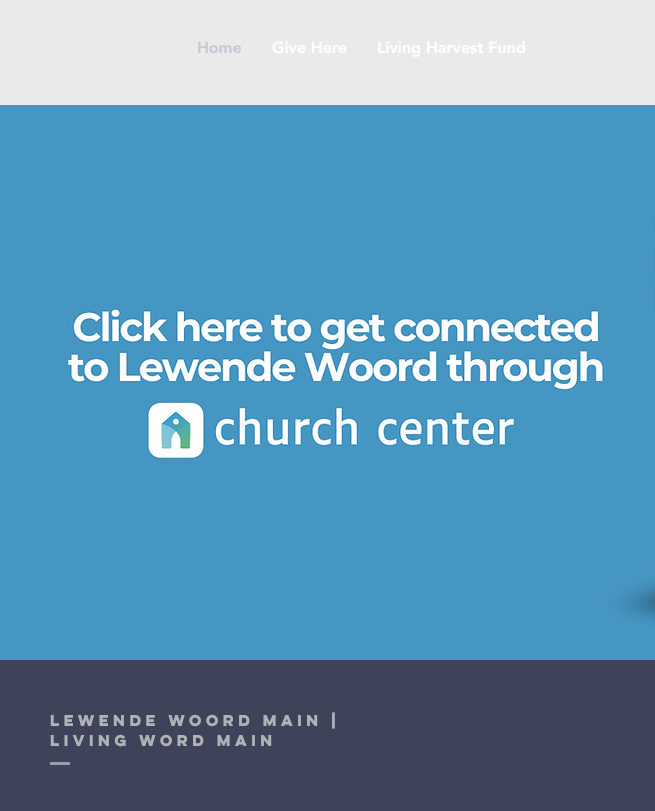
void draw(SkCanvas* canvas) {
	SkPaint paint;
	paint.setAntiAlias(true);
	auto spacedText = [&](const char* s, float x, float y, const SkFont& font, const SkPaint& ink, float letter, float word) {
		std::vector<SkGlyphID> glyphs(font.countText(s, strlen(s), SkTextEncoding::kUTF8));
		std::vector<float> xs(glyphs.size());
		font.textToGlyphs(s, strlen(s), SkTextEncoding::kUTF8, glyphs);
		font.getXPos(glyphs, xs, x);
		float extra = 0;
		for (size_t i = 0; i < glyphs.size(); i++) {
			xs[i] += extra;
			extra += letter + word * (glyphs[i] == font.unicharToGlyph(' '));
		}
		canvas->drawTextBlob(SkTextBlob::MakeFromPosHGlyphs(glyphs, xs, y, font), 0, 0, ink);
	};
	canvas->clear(0xffeaeaea);
	SkFont f1(fontMgr->matchFamilyStyle("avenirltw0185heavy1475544", SkFontStyle(900, SkFontStyle::kNormal_Width, SkFontStyle::kUpright_Slant)), 16);
	f1.setSubpixel(true);
	paint.setColor(0xffc6c8d5);
	canvas->drawString("Home", 197, 53, f1, paint);
	paint.setColor(0xffffffff);
	canvas->drawString("Give Here", 272, 53, f1, paint);
	canvas->drawString("Living Harvest Fund", 377, 53, f1, paint);
	paint.setColor(0xff4696c4);
	canvas->drawRect(SkRect::MakeXYWH(0, 105, 655, 555), paint);
	canvas->drawImageRect(SkImages::DeferredFromEncodedData(SkData::MakeFromFileName("img1.png")), SkRect::MakeXYWH(67, 217, 588, 409), SkSamplingOptions());
	paint.setColor(0xff3f4359);
	canvas->drawRect(SkRect::MakeXYWH(0, 660, 655, 151), paint);
	SkFont f2(fontMgr->matchFamilyStyle("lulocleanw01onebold", SkFontStyle::Bold()), 14);
	f2.setSubpixel(true);
	paint.setColor(0xffb0b2b8);
	spacedText("LEWENDE WOORD MAIN |", 50, 726, f2, paint, 1.4, 0);
	spacedText("Living Word MAIN", 50, 746, f2, paint, 1.4, 0);
	paint.setColor(0xff9b9eac);
	canvas->drawRect(SkRect::MakeXYWH(50, 762, 20, 3), paint);
}
